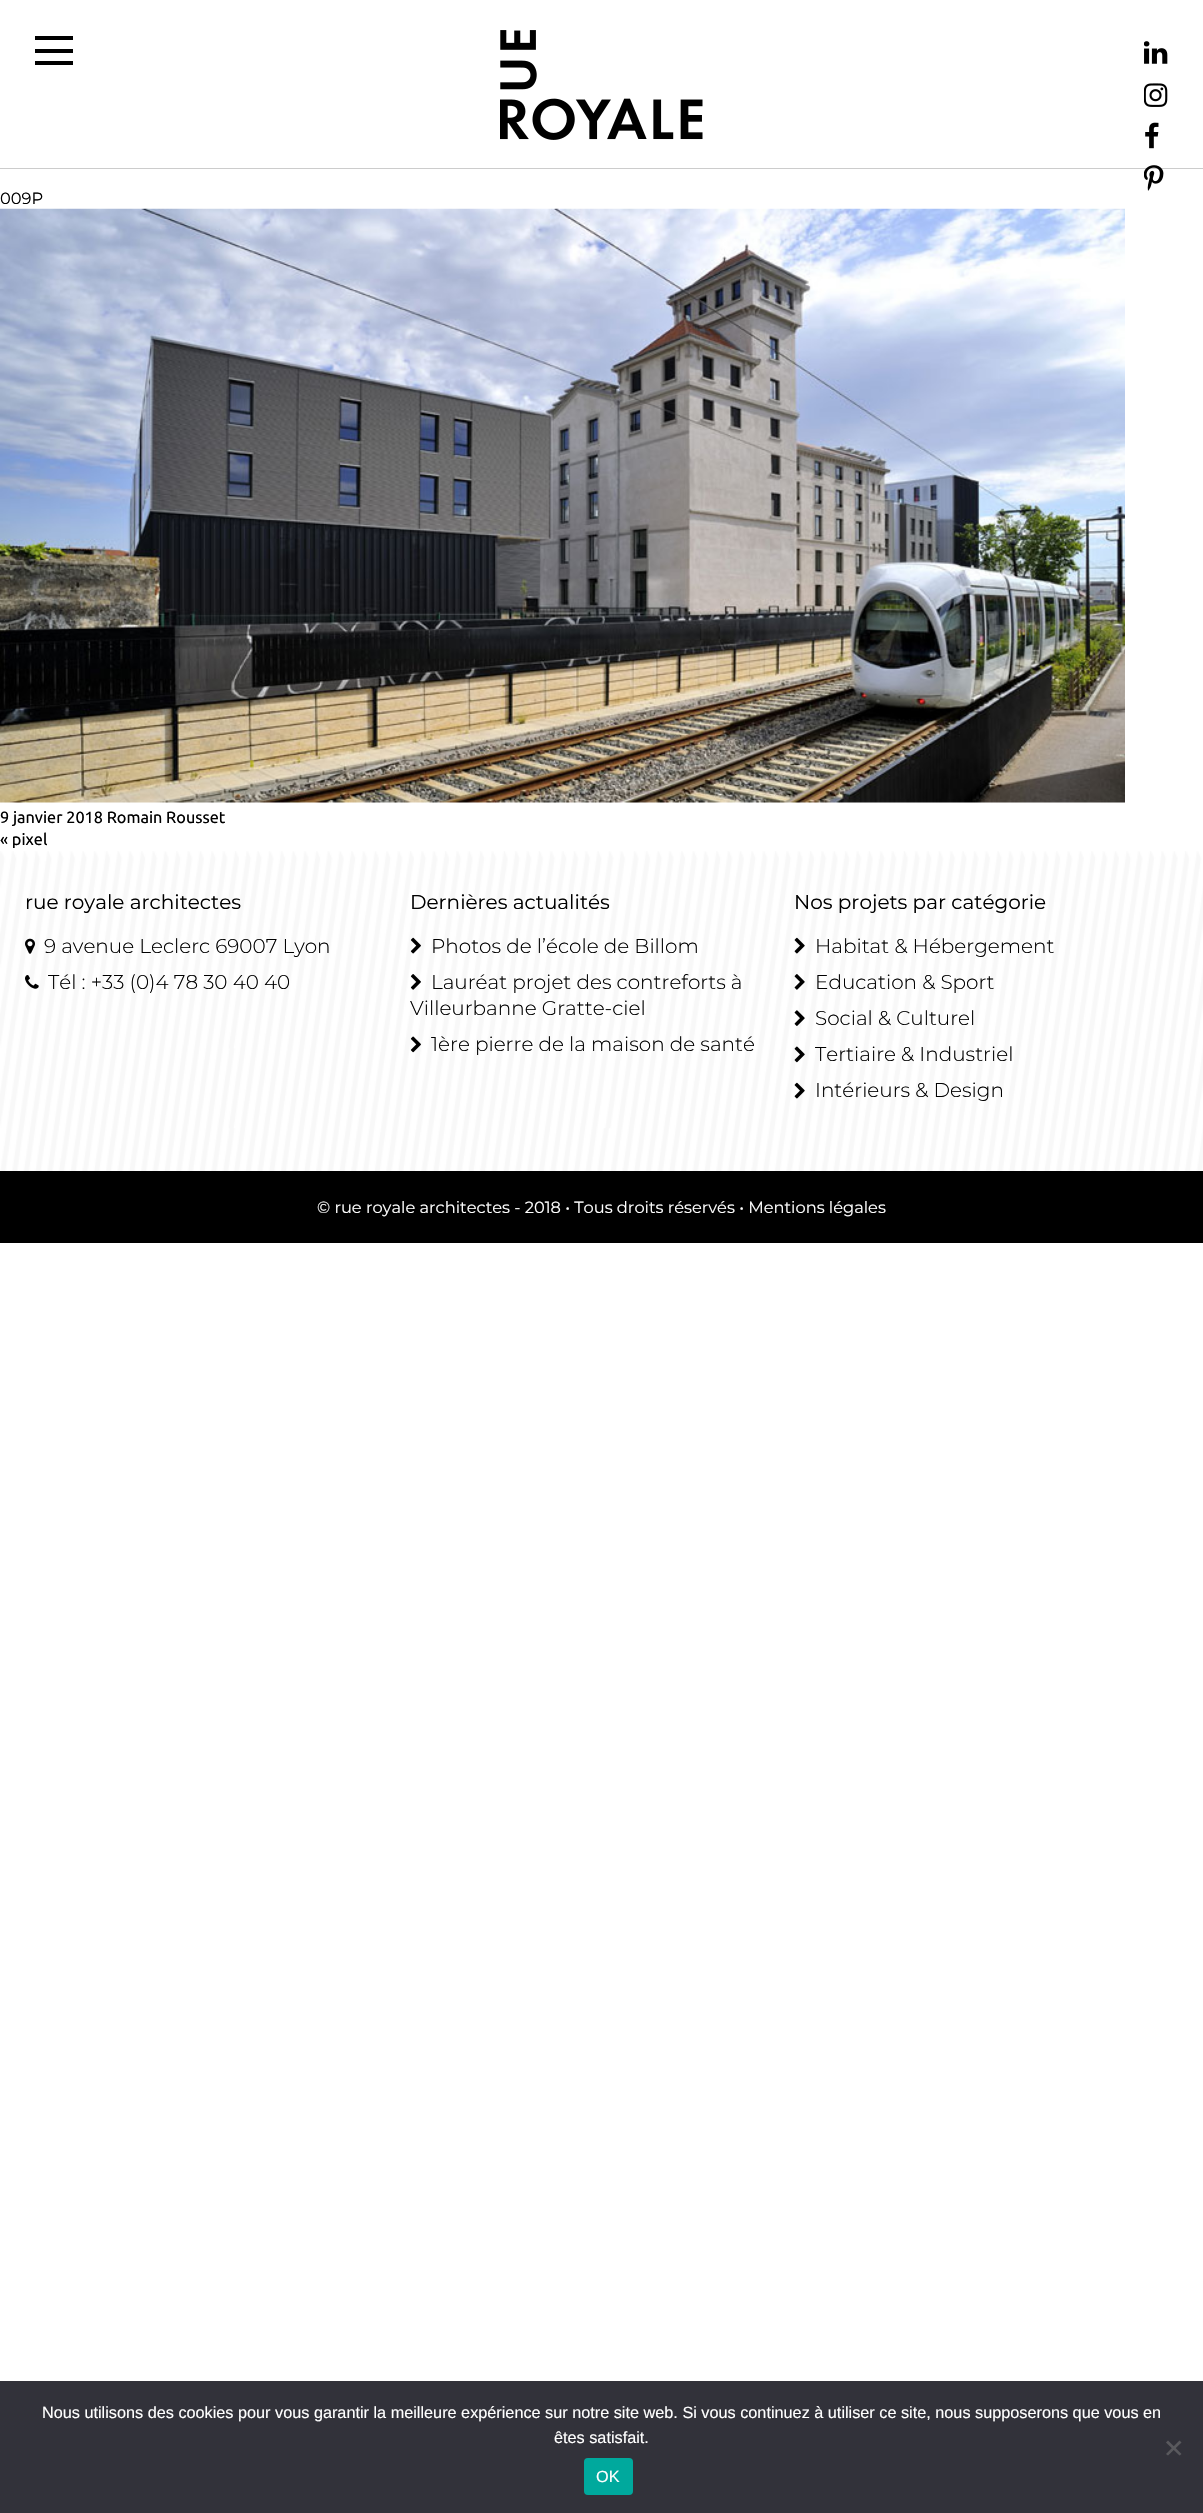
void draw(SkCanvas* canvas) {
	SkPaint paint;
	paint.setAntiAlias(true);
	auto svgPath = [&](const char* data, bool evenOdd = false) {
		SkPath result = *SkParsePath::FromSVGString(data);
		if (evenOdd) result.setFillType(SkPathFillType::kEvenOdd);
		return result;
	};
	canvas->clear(0xffffffff);
	paint.setColor(0xffcccccc);
	canvas->drawRect(SkRect::MakeXYWH(0, 168, 1203, 1), paint);
	paint.setColor(0xff000000);
	canvas->drawRect(SkRect::MakeXYWH(35, 61, 38, 4), paint);
	canvas->drawRect(SkRect::MakeXYWH(35, 36, 38, 4), paint);
	canvas->drawRect(SkRect::MakeXYWH(35, 49, 38, 4), paint);
	canvas->drawImageRect(SkImages::DeferredFromEncodedData(SkData::MakeFromFileName("img1.png")), SkRect::MakeXYWH(500, 30, 203, 110), SkSamplingOptions());
	canvas->drawImageRect(SkImages::DeferredFromEncodedData(SkData::MakeFromFileName("img2.png")), SkRect::MakeXYWH(1144, 41, 24, 23), SkSamplingOptions());
	canvas->drawImageRect(SkImages::DeferredFromEncodedData(SkData::MakeFromFileName("img3.png")), SkRect::MakeXYWH(1144, 83, 24, 24), SkSamplingOptions());
	canvas->drawImageRect(SkImages::DeferredFromEncodedData(SkData::MakeFromFileName("img4.png")), SkRect::MakeXYWH(1145, 122, 14, 27), SkSamplingOptions());
	canvas->drawImageRect(SkImages::DeferredFromEncodedData(SkData::MakeFromFileName("img5.png")), SkRect::MakeXYWH(1144, 165, 20, 26), SkSamplingOptions());
	SkFont f1(fontMgr->matchFamilyStyle("Montserrat", SkFontStyle::Normal()), 16.25);
	f1.setSubpixel(true);
	canvas->drawString("009P", 0, 204, f1, paint);
	canvas->drawImageRect(SkImages::DeferredFromEncodedData(SkData::MakeFromFileName("img6.png")), SkRect::MakeXYWH(0, 208, 1125, 595), SkSamplingOptions());
	SkFont f2(fontMgr->matchFamilyStyle("Ubuntu", SkFontStyle::Normal()), 16.25);
	f2.setSubpixel(true);
	canvas->drawString("9 janvier 2018 Romain Rousset", 0, 823, f2, paint);
	canvas->drawString("« pixel", 0, 845, f2, paint);
	canvas->drawImageRect(SkImages::DeferredFromEncodedData(SkData::MakeFromFileName("img7.png")), SkRect::MakeXYWH(0, 851, 1203, 320), SkSamplingOptions());
	SkFont f3(fontMgr->matchFamilyStyle("Montserrat", SkFontStyle::Normal()), 20);
	f3.setSubpixel(true);
	canvas->drawString("rue royale architectes", 25, 909, f3, paint);
	canvas->drawImageRect(SkImages::DeferredFromEncodedData(SkData::MakeFromFileName("img8.png")), SkRect::MakeXYWH(25, 938, 10, 16), SkSamplingOptions());
	SkFont f4(fontMgr->matchFamilyStyle("Montserrat", SkFontStyle(300, SkFontStyle::kNormal_Width, SkFontStyle::kUpright_Slant)), 20);
	f4.setSubpixel(true);
	canvas->drawString("9 avenue Leclerc 69007 Lyon", 44, 953, f4, paint);
	canvas->drawImageRect(SkImages::DeferredFromEncodedData(SkData::MakeFromFileName("img9.png")), SkRect::MakeXYWH(25, 975, 14, 14), SkSamplingOptions());
	canvas->drawString("Tél : +33 (0)4 78 30 40 40", 48, 989, f4, paint);
	canvas->drawString("Dernières actualités", 410, 909, f3, paint);
	canvas->drawImageRect(SkImages::DeferredFromEncodedData(SkData::MakeFromFileName("img10.png")), SkRect::MakeXYWH(410, 937, 11, 17), SkSamplingOptions());
	canvas->drawString("Photos de l’école de Billom", 431, 953, f4, paint);
	canvas->drawImageRect(SkImages::DeferredFromEncodedData(SkData::MakeFromFileName("img11.png")), SkRect::MakeXYWH(410, 974, 11, 16), SkSamplingOptions());
	canvas->drawString("Lauréat projet des contreforts à", 431, 989, f4, paint);
	canvas->drawString("Villeurbanne Gratte-ciel", 410, 1015, f4, paint);
	canvas->drawImageRect(SkImages::DeferredFromEncodedData(SkData::MakeFromFileName("img12.png")), SkRect::MakeXYWH(410, 1036, 11, 17), SkSamplingOptions());
	canvas->drawString("1ère pierre de la maison de santé", 431, 1051, f4, paint);
	canvas->drawString("Nos projets par catégorie", 794, 909, f3, paint);
	canvas->drawImageRect(SkImages::DeferredFromEncodedData(SkData::MakeFromFileName("img13.png")), SkRect::MakeXYWH(794, 937, 11, 17), SkSamplingOptions());
	canvas->drawString("Habitat & Hébergement", 815, 953, f4, paint);
	canvas->drawImageRect(SkImages::DeferredFromEncodedData(SkData::MakeFromFileName("img14.png")), SkRect::MakeXYWH(794, 974, 11, 16), SkSamplingOptions());
	canvas->drawString("Education & Sport", 815, 989, f4, paint);
	canvas->drawImageRect(SkImages::DeferredFromEncodedData(SkData::MakeFromFileName("img15.png")), SkRect::MakeXYWH(794, 1010, 11, 16), SkSamplingOptions());
	canvas->drawString("Social & Culturel", 815, 1025, f4, paint);
	canvas->drawImageRect(SkImages::DeferredFromEncodedData(SkData::MakeFromFileName("img16.png")), SkRect::MakeXYWH(794, 1046, 11, 17), SkSamplingOptions());
	canvas->drawString("Tertiaire & Industriel", 815, 1061, f4, paint);
	canvas->drawImageRect(SkImages::DeferredFromEncodedData(SkData::MakeFromFileName("img17.png")), SkRect::MakeXYWH(794, 1082, 11, 17), SkSamplingOptions());
	canvas->drawString("Intérieurs & Design", 815, 1097, f4, paint);
	canvas->drawRect(SkRect::MakeXYWH(0, 1171, 1203, 72), paint);
	paint.setColor(0xffffffff);
	canvas->drawString("© rue royale architectes - 2018 • Tous droits réservés • Mentions légales", 317, 1213, f1, paint);
	paint.setColor(0xff32323a);
	canvas->drawRect(SkRect::MakeXYWH(0, 2381, 1203, 132), paint);
	SkFont f5(fontMgr->matchFamilyStyle("Liberation Sans", SkFontStyle::Normal()), 16.25);
	f5.setSubpixel(true);
	paint.setColor(0xffffffff);
	canvas->drawString("Nous utilisons des cookies pour vous garantir la meilleure expérience sur notre site web. Si vous continuez à utiliser ce site, nous supposerons que vous en", 42, 2418, f5, paint);
	canvas->drawString("êtes satisfait.", 554, 2443, f5, paint);
	paint.setColor(0xff59595d);
	canvas->drawPath(svgPath("M1179.5 2440.5L1181.5 2442.5L1168 2455.5L1166 2454Z"), paint);
	canvas->drawPath(svgPath("M1166 2442.5L1168 2440.5L1181.5 2454L1179.5 2455.5Z"), paint);
	paint.setColor(0xff00a99d);
	canvas->drawRoundRect(SkRect::MakeXYWH(584, 2458, 49, 37), 4, 4, paint);
	paint.setColor(0xffffffff);
	canvas->drawString("OK", 596, 2482, f5, paint);
}
